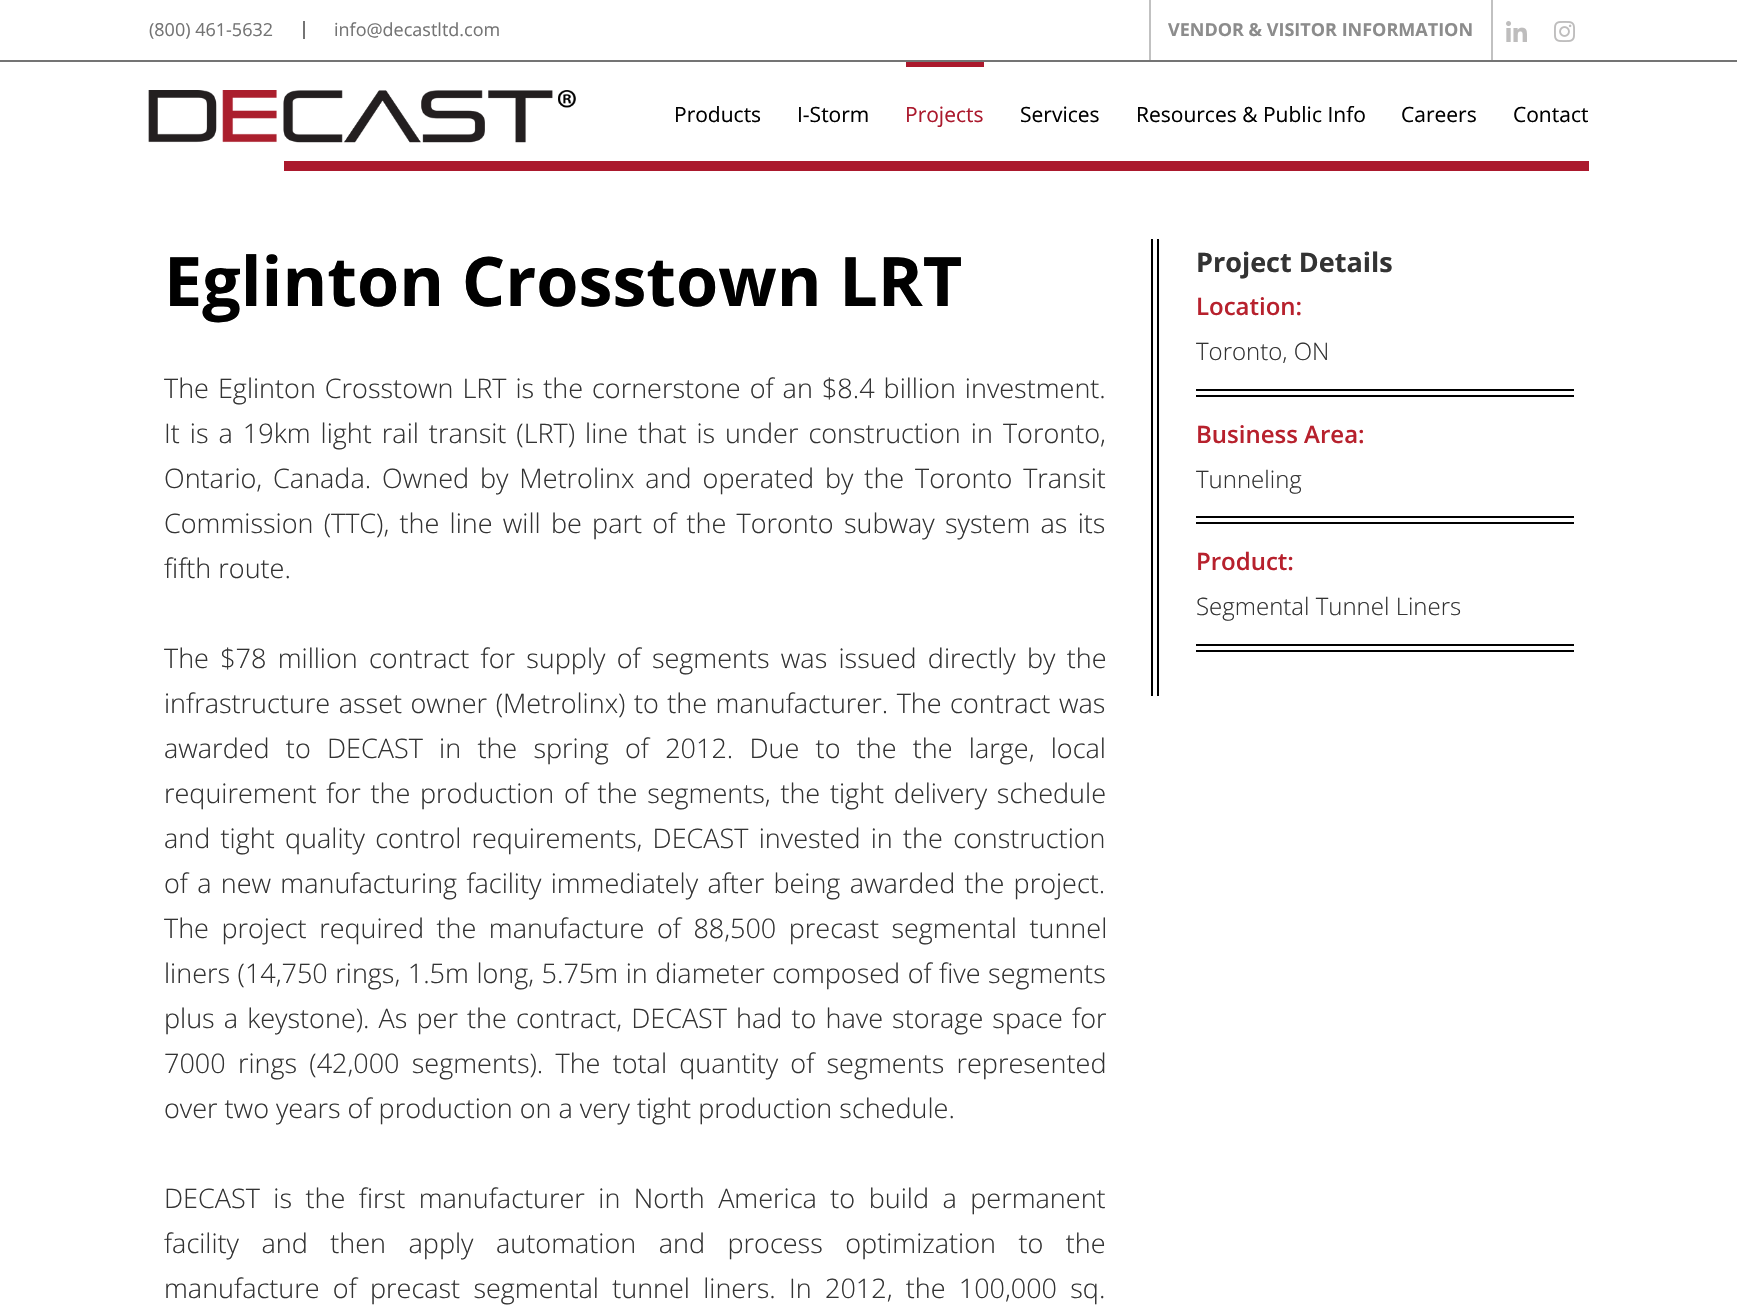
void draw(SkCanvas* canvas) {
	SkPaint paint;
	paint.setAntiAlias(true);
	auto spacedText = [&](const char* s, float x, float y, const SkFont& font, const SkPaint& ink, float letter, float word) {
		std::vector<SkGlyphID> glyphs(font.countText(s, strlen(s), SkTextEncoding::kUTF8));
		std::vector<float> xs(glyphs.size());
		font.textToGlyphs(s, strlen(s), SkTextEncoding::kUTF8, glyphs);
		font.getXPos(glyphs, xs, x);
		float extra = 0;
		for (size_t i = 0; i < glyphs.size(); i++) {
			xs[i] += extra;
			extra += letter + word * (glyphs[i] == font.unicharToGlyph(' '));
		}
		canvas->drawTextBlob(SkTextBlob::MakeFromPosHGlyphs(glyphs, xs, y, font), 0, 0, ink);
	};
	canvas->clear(0xffffffff);
	paint.setColor(0xff747474);
	canvas->drawRect(SkRect::MakeXYWH(0, 60, 1737, 2), paint);
	SkFont f1(fontMgr->matchFamilyStyle("Open Sans", SkFontStyle::Normal()), 18);
	f1.setSubpixel(true);
	canvas->drawString("(800) 461-5632", 149, 36, f1, paint);
	canvas->drawRect(SkRect::MakeXYWH(303, 21, 2, 18), paint);
	canvas->drawString("info@decastltd.com", 334, 36, f1, paint);
	paint.setColor(0xffc1c1c1);
	canvas->drawRect(SkRect::MakeXYWH(1491, 0, 2, 60), paint);
	canvas->drawRect(SkRect::MakeXYWH(1149, 0, 2, 60), paint);
	SkFont f2(fontMgr->matchFamilyStyle("Open Sans", SkFontStyle::Bold()), 18);
	f2.setSubpixel(true);
	paint.setColor(0xff8c8c8c);
	canvas->drawString("VENDOR & VISITOR INFORMATION", 1168, 36, f2, paint);
	canvas->drawImageRect(SkImages::DeferredFromEncodedData(SkData::MakeFromFileName("img1.png")), SkRect::MakeXYWH(1506, 21, 21, 21), SkSamplingOptions());
	canvas->drawImageRect(SkImages::DeferredFromEncodedData(SkData::MakeFromFileName("img2.png")), SkRect::MakeXYWH(1554, 21, 21, 21), SkSamplingOptions());
	canvas->drawImageRect(SkImages::DeferredFromEncodedData(SkData::MakeFromFileName("img3.png")), SkRect::MakeXYWH(148, 90, 428, 53), SkSamplingOptions());
	SkFont f3(fontMgr->matchFamilyStyle("Open Sans", SkFontStyle::Normal()), 21);
	f3.setSubpixel(true);
	paint.setColor(0xff000000);
	canvas->drawString("Products", 674, 122, f3, paint);
	canvas->drawString("I-Storm", 797, 122, f3, paint);
	paint.setColor(0xffab192d);
	canvas->drawRect(SkRect::MakeXYWH(906, 62, 78, 5), paint);
	canvas->drawString("Projects", 905, 122, f3, paint);
	paint.setColor(0xff000000);
	canvas->drawString("Services", 1020, 122, f3, paint);
	canvas->drawString("Resources & Public Info", 1136, 122, f3, paint);
	canvas->drawString("Careers", 1401, 122, f3, paint);
	canvas->drawString("Contact", 1513, 122, f3, paint);
	paint.setColor(0xffab192d);
	canvas->drawRect(SkRect::MakeXYWH(284, 161, 1305, 10), paint);
	SkFont f4(fontMgr->matchFamilyStyle("Open Sans", SkFontStyle::Bold()), 68.25);
	f4.setSubpixel(true);
	paint.setColor(0xff000000);
	canvas->drawString("Eglinton Crosstown LRT", 164, 306, f4, paint);
	SkFont f5(fontMgr->matchFamilyStyle("Open Sans", SkFontStyle(300, SkFontStyle::kNormal_Width, SkFontStyle::kUpright_Slant)), 27);
	f5.setSubpixel(true);
	paint.setColor(0xff333333);
	spacedText("The Eglinton Crosstown LRT is the cornerstone of an $8.4 billion investment.", 164, 398, f5, paint, 0, 2);
	spacedText("It is a 19km light rail transit (LRT) line that is under construction in Toronto,", 164, 443, f5, paint, 0, 3);
	spacedText("Ontario, Canada. Owned by Metrolinx and operated by the Toronto Transit", 164, 488, f5, paint, 0, 3.9);
	spacedText("Commission (TTC), the line will be part of the Toronto subway system as its", 164, 533, f5, paint, 0, 3.25);
	canvas->drawString("fifth route.", 164, 578, f5, paint);
	spacedText("The $78 million contract for supply of segments was issued directly by the", 164, 668, f5, paint, 0, 4.25);
	spacedText("infrastructure asset owner (Metrolinx) to the manufacturer. The contract was", 164, 713, f5, paint, 0, 1.5);
	spacedText("awarded to DECAST in the spring of 2012. Due to the the large, local", 164, 758, f5, paint, 0, 9.25);
	spacedText("requirement for the production of the segments, the tight delivery schedule", 164, 803, f5, paint, 0, 2.75);
	spacedText("and tight quality control requirements, DECAST invested in the construction", 164, 848, f5, paint, 0, 3.25);
	spacedText("of a new manufacturing facility immediately after being awarded the project.", 164, 893, f5, paint, 0, 2.25);
	spacedText("The project required the manufacture of 88,500 precast segmental tunnel", 164, 938, f5, paint, 0, 5.5);
	spacedText("liners (14,750 rings, 1.5m long, 5.75m in diameter composed of five segments", 164, 983, f5, paint, 0, 0.5);
	spacedText("plus a keystone). As per the contract, DECAST had to have storage space for", 164, 1028, f5, paint, 0, 2.1);
	spacedText("7000 rings (42,000 segments). The total quantity of segments represented", 164, 1073, f5, paint, 0, 5.25);
	canvas->drawString("over two years of production on a very tight production schedule.", 164, 1118, f5, paint);
	spacedText("DECAST is the first manufacturer in North America to build a permanent", 164, 1208, f5, paint, 0, 6.5);
	spacedText("facility and then apply automation and process optimization to the", 164, 1253, f5, paint, 0, 15.5);
	spacedText("manufacture of", 164, 1298, f5, paint, 0, 6.25);
	spacedText("precast segmental tunnel liners. In 2012, the 100,000 sq.", 370, 1298, f5, paint, 0, 6.25);
	paint.setColor(0xff000000);
	canvas->drawRect(SkRect::MakeXYWH(1157, 239, 2, 457), paint);
	canvas->drawRect(SkRect::MakeXYWH(1151, 239, 2, 457), paint);
	SkFont f6(fontMgr->matchFamilyStyle("Open Sans", SkFontStyle::Bold()), 27);
	f6.setSubpixel(true);
	paint.setColor(0xff333333);
	canvas->drawString("Project Details", 1196, 272, f6, paint);
	SkFont f7(fontMgr->matchFamilyStyle("Open Sans", SkFontStyle(600, SkFontStyle::kNormal_Width, SkFontStyle::kUpright_Slant)), 24);
	f7.setSubpixel(true);
	paint.setColor(0xffb7212d);
	canvas->drawString("Location:", 1196, 315, f7, paint);
	SkFont f8(fontMgr->matchFamilyStyle("Open Sans", SkFontStyle(300, SkFontStyle::kNormal_Width, SkFontStyle::kUpright_Slant)), 24);
	f8.setSubpixel(true);
	paint.setColor(0xff333333);
	canvas->drawString("Toronto, ON", 1196, 360, f8, paint);
	paint.setColor(0xff000000);
	canvas->drawRect(SkRect::MakeXYWH(1196, 389, 378, 2), paint);
	canvas->drawRect(SkRect::MakeXYWH(1196, 395, 378, 2), paint);
	paint.setColor(0xffb7212d);
	canvas->drawString("Business Area:", 1196, 443, f7, paint);
	paint.setColor(0xff333333);
	canvas->drawString("Tunneling", 1196, 488, f8, paint);
	paint.setColor(0xff000000);
	canvas->drawRect(SkRect::MakeXYWH(1196, 516, 378, 2), paint);
	canvas->drawRect(SkRect::MakeXYWH(1196, 522, 378, 2), paint);
	paint.setColor(0xffb7212d);
	canvas->drawString("Product:", 1196, 570, f7, paint);
	paint.setColor(0xff333333);
	canvas->drawString("Segmental Tunnel Liners", 1196, 615, f8, paint);
	paint.setColor(0xff000000);
	canvas->drawRect(SkRect::MakeXYWH(1196, 644, 378, 2), paint);
	canvas->drawRect(SkRect::MakeXYWH(1196, 650, 378, 2), paint);
}
